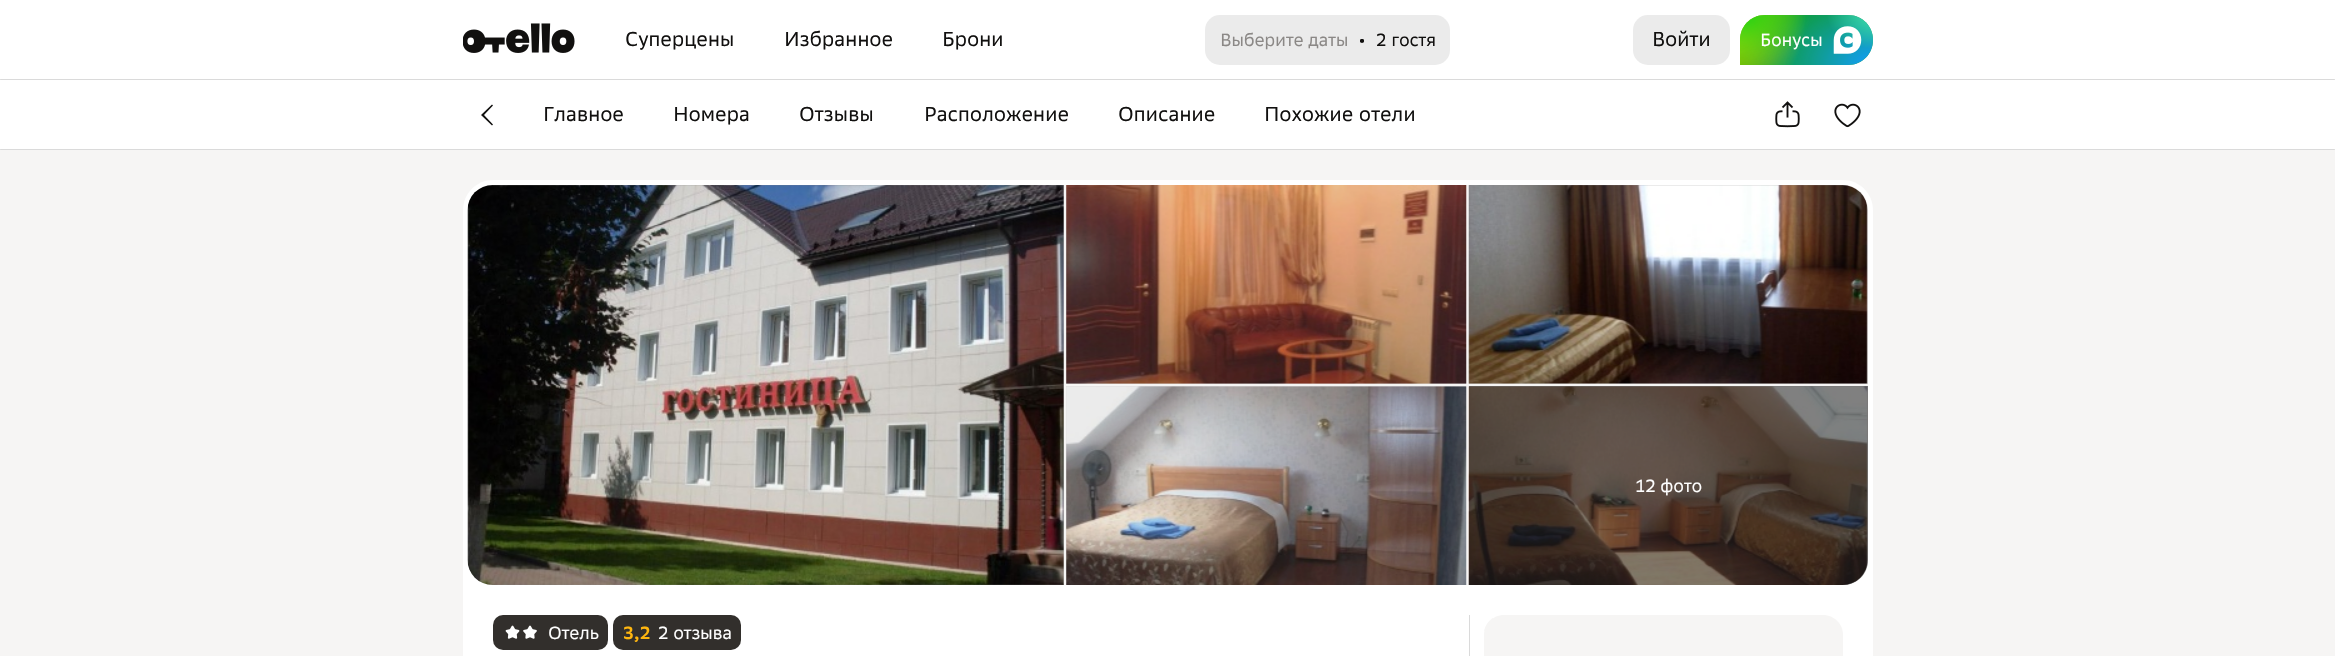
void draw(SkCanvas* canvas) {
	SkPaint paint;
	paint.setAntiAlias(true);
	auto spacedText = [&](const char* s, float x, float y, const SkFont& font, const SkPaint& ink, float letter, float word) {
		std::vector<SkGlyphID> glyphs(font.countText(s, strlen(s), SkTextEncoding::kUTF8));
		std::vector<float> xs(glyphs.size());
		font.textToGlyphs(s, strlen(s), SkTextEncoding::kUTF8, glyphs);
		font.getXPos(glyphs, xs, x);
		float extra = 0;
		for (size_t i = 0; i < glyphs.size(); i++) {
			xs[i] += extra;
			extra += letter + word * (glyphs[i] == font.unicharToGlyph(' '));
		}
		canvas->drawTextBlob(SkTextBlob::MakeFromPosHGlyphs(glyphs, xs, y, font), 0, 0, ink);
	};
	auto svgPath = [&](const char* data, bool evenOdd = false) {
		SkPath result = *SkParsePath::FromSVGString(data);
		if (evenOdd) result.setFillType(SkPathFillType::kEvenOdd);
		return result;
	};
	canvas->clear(0xfff6f5f4);
	paint.setColor(0xffffffff);
	canvas->drawRect(SkRect::MakeXYWH(0, 0, 2335, 150), paint);
	paint.setColor(0xffdadada);
	canvas->drawRoundRect(SkRect::MakeXYWH(0, 79, 2335, 1), 0.5, 0.5, paint);
	canvas->drawImageRect(SkImages::DeferredFromEncodedData(SkData::MakeFromFileName("img1.png")), SkRect::MakeXYWH(463, 23, 112, 30), SkSamplingOptions());
	SkFont f1(fontMgr->matchFamilyStyle("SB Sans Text", SkFontStyle::Normal()), 20);
	f1.setSubpixel(true);
	paint.setColor(0xff11100f);
	spacedText("Суперцены", 625, 46, f1, paint, -0.25, 0);
	spacedText("Избранное", 784, 46, f1, paint, -0.25, 0);
	spacedText("Брони", 942, 46, f1, paint, -0.25, 0);
	paint.setColor(0xffebebeb);
	canvas->drawRoundRect(SkRect::MakeXYWH(1205, 15, 245, 50), 15, 15, paint);
	SkFont f2(fontMgr->matchFamilyStyle("SB Sans Text", SkFontStyle::Normal()), 17.5);
	f2.setSubpixel(true);
	paint.setColor(0xff8b8886);
	spacedText("Выберите даты", 1220, 46, f2, paint, -0.3, 0);
	paint.setColor(0xff11100f);
	spacedText("•", 1358, 48, f1, paint, -0.25, 0);
	spacedText("2 гостя", 1376, 46, f2, paint, -0.3, 0);
	paint.setColor(0xffebebeb);
	canvas->drawRoundRect(SkRect::MakeXYWH(1633, 15, 97, 50), 15, 15, paint);
	paint.setColor(0xff11100f);
	spacedText("Войти", 1652, 46, f1, paint, -0.25, 0);
	paint.setColor(0xff0c9c0c);
	canvas->drawPath(svgPath("M1765 15H1848C1862 15 1873 26 1873 40C1873 54 1862 65 1848 65H1740V40C1740 26 1751 15 1765 15Z"), paint);
	{
		const SkColor colors[] = {0xff129dfa, 0x00129dfa};
		const float stops[] = {0, 1};
		SkMatrix m = SkMatrix::Translate(1873, 65).preScale(130, 92);
		paint.setShader(SkGradientShader::MakeRadial({0, 0}, 1, colors, stops, 2, SkTileMode::kClamp, 0, &m));
		paint.setAlpha(255);
	}
	canvas->drawPath(svgPath("M1765 15H1848C1862 15 1873 26 1873 40C1873 54 1862 65 1848 65H1740V40C1740 26 1751 15 1765 15Z"), paint);
	{
		const SkColor colors[] = {0xff42e3b4, 0x0042e3b4};
		const float stops[] = {0, 1};
		SkMatrix m = SkMatrix::Translate(1878, 15).preScale(51, 34);
		paint.setShader(SkGradientShader::MakeRadial({0, 0}, 1, colors, stops, 2, SkTileMode::kClamp, 0, &m));
		paint.setAlpha(255);
	}
	canvas->drawPath(svgPath("M1765 15H1848C1862 15 1873 26 1873 40C1873 54 1862 65 1848 65H1740V40C1740 26 1751 15 1765 15Z"), paint);
	{
		const SkColor colors[] = {0xfffaed05, 0x00faed05};
		const float stops[] = {0, 1};
		SkMatrix m = SkMatrix::Translate(1734, 15).preScale(72, 88);
		paint.setShader(SkGradientShader::MakeRadial({0, 0}, 1, colors, stops, 2, SkTileMode::kClamp, 0, &m));
		paint.setAlpha(255);
	}
	canvas->drawPath(svgPath("M1765 15H1848C1862 15 1873 26 1873 40C1873 54 1862 65 1848 65H1740V40C1740 26 1751 15 1765 15Z"), paint);
	{
		const SkColor colors[] = {0xff15d015, 0x0015d015};
		const float stops[] = {0, 1};
		SkMatrix m = SkMatrix::Translate(1740, 15).preScale(71, 51);
		paint.setShader(SkGradientShader::MakeRadial({0, 0}, 1, colors, stops, 2, SkTileMode::kClamp, 0, &m));
		paint.setAlpha(255);
	}
	canvas->drawPath(svgPath("M1765 15H1848C1862 15 1873 26 1873 40C1873 54 1862 65 1848 65H1740V40C1740 26 1751 15 1765 15Z"), paint);
	paint.setShader(nullptr);
	paint.setColor(0xffffffff);
	spacedText("Бонусы", 1760, 46, f2, paint, -0.3, 0);
	canvas->drawImageRect(SkImages::DeferredFromEncodedData(SkData::MakeFromFileName("img2.png")), SkRect::MakeXYWH(1833, 26, 29, 28), SkSamplingOptions());
	paint.setColor(0xffdadada);
	canvas->drawRoundRect(SkRect::MakeXYWH(0, 149, 2335, 1), 0.5, 0.5, paint);
	paint.setColor(0xff11100f);
	canvas->drawPath(svgPath("M492 125.5L493 124.5L484 115L493 105.5L492 104.5L481 115Z", true), paint);
	spacedText("Главное", 543, 121, f1, paint, -0.25, 0);
	spacedText("Номера", 673, 121, f1, paint, -0.25, 0);
	spacedText("Отзывы", 799, 121, f1, paint, -0.25, 0);
	spacedText("Расположение", 924, 121, f1, paint, -0.25, 0);
	spacedText("Описание", 1118, 121, f1, paint, -0.25, 0);
	spacedText("Похожие отели", 1264, 121, f1, paint, -0.25, 0);
	canvas->drawImageRect(SkImages::DeferredFromEncodedData(SkData::MakeFromFileName("img3.png")), SkRect::MakeXYWH(1775, 101, 25, 27), SkSamplingOptions());
	canvas->drawImageRect(SkImages::DeferredFromEncodedData(SkData::MakeFromFileName("img4.png")), SkRect::MakeXYWH(1834, 103, 27, 25), SkSamplingOptions());
	paint.setColor(0xffffffff);
	canvas->drawPath(svgPath("M493 180H1843C1859.5 180 1873 193.5 1873 210V656H463V210C463 193.5 476.5 180 493 180Z"), paint);
	paint.setColor(0xfff6f5f4);
	canvas->drawRoundRect(SkRect::MakeXYWH(468, 185, 1400, 400), 25, 25, paint);
	canvas->drawImageRect(SkImages::DeferredFromEncodedData(SkData::MakeFromFileName("img5.png")), SkRect::MakeXYWH(467, 185, 597, 400), SkSamplingOptions());
	paint.setColor(0x29848382);
	canvas->drawPath(svgPath("M469 205L468 210V560L469 565ZM493 185L488 186H1063V584H488L493 585H1064V185Z", true), paint);
	paint.setColor(0xffdcdad9);
	canvas->drawRect(SkRect::MakeXYWH(1066, 185, 400, 199), paint);
	canvas->drawImageRect(SkImages::DeferredFromEncodedData(SkData::MakeFromFileName("img6.png")), SkRect::MakeXYWH(1066, 185, 401, 199), SkSamplingOptions());
	canvas->drawRect(SkRect::MakeXYWH(1066, 386, 400, 199), paint);
	canvas->drawImageRect(SkImages::DeferredFromEncodedData(SkData::MakeFromFileName("img7.png")), SkRect::MakeXYWH(1066, 386, 401, 199), SkSamplingOptions());
	paint.setColor(0xffedebea);
	canvas->drawPath(svgPath("M1469 185H1843C1857 185 1868 196 1868 210V384H1469Z"), paint);
	canvas->drawImageRect(SkImages::DeferredFromEncodedData(SkData::MakeFromFileName("img8.png")), SkRect::MakeXYWH(1468, 185, 400, 199), SkSamplingOptions());
	paint.setColor(0x29848382);
	canvas->drawPath(svgPath("M1469 185V384H1868V210L1867 205V383H1470V186H1848L1843 185Z"), paint);
	paint.setColor(0xffedebea);
	canvas->drawPath(svgPath("M1469 386H1868V560C1868 574 1857 585 1843 585H1469Z"), paint);
	canvas->drawImageRect(SkImages::DeferredFromEncodedData(SkData::MakeFromFileName("img9.png")), SkRect::MakeXYWH(1468, 386, 400, 199), SkSamplingOptions());
	paint.setColor(0x80000000);
	canvas->drawPath(svgPath("M1469 386H1868V560C1868 574 1857 585 1843 585H1469Z"), paint);
	paint.setColor(0x29848382);
	canvas->drawPath(svgPath("M1469 386V585H1843C1855 585 1864 577 1867 565L1868 560V386Z"), paint);
	paint.setColor(0xffffffff);
	spacedText("12 фото", 1635, 492, f2, paint, -0.3, 0);
	paint.setColor(0xff322f2c);
	canvas->drawRoundRect(SkRect::MakeXYWH(493, 615, 115, 35), 10, 10, paint);
	canvas->drawImageRect(SkImages::DeferredFromEncodedData(SkData::MakeFromFileName("img10.png")), SkRect::MakeXYWH(505, 625, 15, 14), SkSamplingOptions());
	canvas->drawImageRect(SkImages::DeferredFromEncodedData(SkData::MakeFromFileName("img11.png")), SkRect::MakeXYWH(523, 625, 14, 14), SkSamplingOptions());
	paint.setColor(0xffffffff);
	spacedText("Отель", 548, 639, f2, paint, -0.3, 0);
	paint.setColor(0xff322f2c);
	canvas->drawRoundRect(SkRect::MakeXYWH(613, 615, 128, 35), 10, 10, paint);
	SkFont f3(fontMgr->matchFamilyStyle("SB Sans Text", SkFontStyle(600, SkFontStyle::kNormal_Width, SkFontStyle::kUpright_Slant)), 17.5);
	f3.setSubpixel(true);
	paint.setColor(0xffffb60f);
	spacedText("3,2", 623, 639, f3, paint, -0.3, 0);
	paint.setColor(0xffffffff);
	spacedText("2 отзыва", 658, 639, f2, paint, -0.3, 0);
	paint.setColor(0xffdadada);
	canvas->drawPath(svgPath("M1469.5 615C1470 615 1470 615 1470 615.5V656H1469V615.5C1469 615 1469 615 1469.5 615Z"), paint);
	paint.setColor(0xfff6f5f4);
	canvas->drawPath(svgPath("M1504 615H1823C1834 615 1843 624 1843 635V656H1484V635C1484 624 1493 615 1504 615Z"), paint);
	canvas->drawImageRect(SkImages::DeferredFromEncodedData(SkData::MakeFromFileName("img12.png")), SkRect::MakeXYWH(1484, 618, 9, 13), SkSamplingOptions());
}
